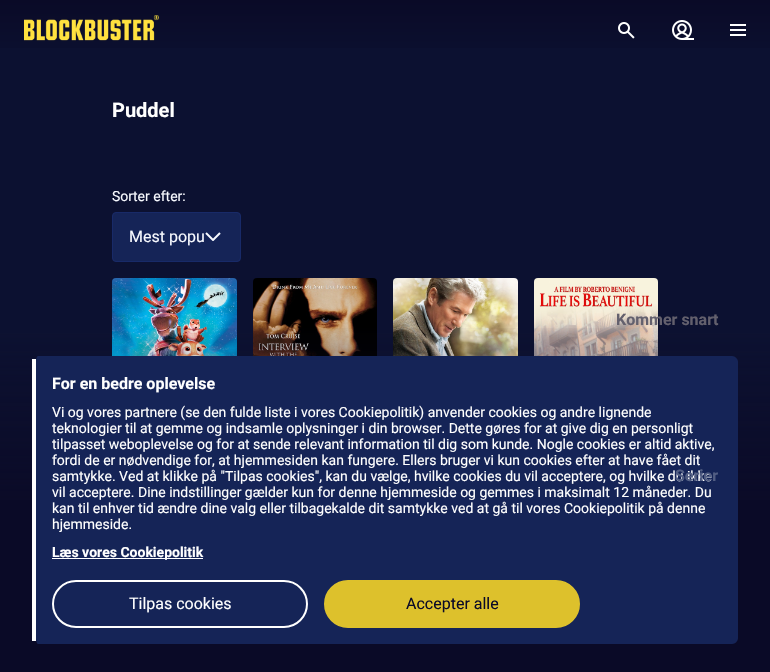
void draw(SkCanvas* canvas) {
	SkPaint paint;
	paint.setAntiAlias(true);
	auto svgPath = [&](const char* data, bool evenOdd = false) {
		SkPath result = *SkParsePath::FromSVGString(data);
		if (evenOdd) result.setFillType(SkPathFillType::kEvenOdd);
		return result;
	};
	canvas->clear(0xff0c1131);
	{
		const SkColor colors[] = {0xff0c1131, 0xff0a0a27};
		const float stops[] = {0, 1};
		const SkPoint ends[] = {{385, 64}, {385, 0}};
		paint.setShader(SkGradientShader::MakeLinear(ends, colors, stops, 2, SkTileMode::kClamp));
		paint.setAlpha(255);
	}
	canvas->drawRect(SkRect::MakeXYWH(0, 0, 770, 48), paint);
	canvas->drawImageRect(SkImages::DeferredFromEncodedData(SkData::MakeFromFileName("img1.png")), SkRect::MakeXYWH(24, 15, 135, 26), SkSamplingOptions());
	canvas->drawImageRect(SkImages::DeferredFromEncodedData(SkData::MakeFromFileName("img2.png")), SkRect::MakeXYWH(618, 22, 17, 17), SkSamplingOptions());
	canvas->drawImageRect(SkImages::DeferredFromEncodedData(SkData::MakeFromFileName("img3.png")), SkRect::MakeXYWH(672, 20, 22, 20), SkSamplingOptions());
	paint.setShader(nullptr);
	paint.setColor(0xffffffff);
	canvas->drawRect(SkRect::MakeXYWH(730, 34, 16, 2), paint);
	canvas->drawRect(SkRect::MakeXYWH(730, 24, 16, 2), paint);
	canvas->drawRect(SkRect::MakeXYWH(730, 29, 16, 2), paint);
	SkFont f1(fontMgr->matchFamilyStyle("Roboto", SkFontStyle::Bold()), 20);
	f1.setSubpixel(true);
	canvas->drawString("Puddel", 112, 117, f1, paint);
	SkFont f2(fontMgr->matchFamilyStyle("Roboto", SkFontStyle::Normal()), 14);
	f2.setSubpixel(true);
	paint.setColor(0xfff8faff);
	canvas->drawString("Sorter efter:", 112, 201, f2, paint);
	paint.setColor(0xff152457);
	canvas->drawRoundRect(SkRect::MakeXYWH(112.5, 212.5, 128, 49), 3.5, 3.5, paint);
	paint.setStroke(true);
	paint.setStrokeWidth(1);
	paint.setColor(0xff182a68);
	canvas->drawRoundRect(SkRect::MakeXYWH(112.5, 212.5, 128, 49), 3.5, 3.5, paint);
	SkFont f3(fontMgr->matchFamilyStyle("Roboto", SkFontStyle::Normal()), 16);
	f3.setSubpixel(true);
	paint.setStroke(false);
	paint.setColor(0xfff8faff);
	canvas->drawString("Mest popu", 129, 242, f3, paint);
	canvas->drawImageRect(SkImages::DeferredFromEncodedData(SkData::MakeFromFileName("img4.png")), SkRect::MakeXYWH(205, 232, 16, 9), SkSamplingOptions());
	canvas->drawImageRect(SkImages::DeferredFromEncodedData(SkData::MakeFromFileName("img5.png")), SkRect::MakeXYWH(112, 278, 125, 78), SkSamplingOptions());
	canvas->drawImageRect(SkImages::DeferredFromEncodedData(SkData::MakeFromFileName("img6.png")), SkRect::MakeXYWH(253, 278, 124, 78), SkSamplingOptions());
	canvas->drawImageRect(SkImages::DeferredFromEncodedData(SkData::MakeFromFileName("img7.png")), SkRect::MakeXYWH(393, 278, 125, 78), SkSamplingOptions());
	canvas->drawImageRect(SkImages::DeferredFromEncodedData(SkData::MakeFromFileName("img8.png")), SkRect::MakeXYWH(534, 278, 124, 78), SkSamplingOptions());
	SkFont f4(fontMgr->matchFamilyStyle("Roboto", SkFontStyle::Bold()), 16);
	f4.setSubpixel(true);
	paint.setColor(0xff63606d);
	canvas->drawString("Kommer snart", 616, 325, f4, paint);
	{
		const SkColor colors[] = {0xff0a0a27, 0xff0a0a27, 0x000a0a27};
		const float stops[] = {0, 0.5, 1};
		const SkPoint ends[] = {{385, 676}, {385, 324}};
		paint.setShader(SkGradientShader::MakeLinear(ends, colors, stops, 3, SkTileMode::kClamp));
		paint.setAlpha(255);
	}
	canvas->drawRect(SkRect::MakeXYWH(0, 328, 770, 344), paint);
	paint.setShader(nullptr);
	paint.setColor(0xff152457);
	canvas->drawPath(svgPath("M38 356H732C735 356 738 359 738 362V638C738 641 735 644 732 644H38C37 644 36 641 36 638V362C36 359 37 356 38 356Z"), paint);
	paint.setColor(0xffffffff);
	canvas->drawString("samtykke. Ved at klikke på \"Tilpas cookies\", kan du vælge, hvilke cookies du vil acceptere, og hvilke du ikke", 52, 481, f2, paint);
	paint.setColor(0xff525e83);
	canvas->drawString("Serier", 675, 481, f4, paint);
	paint.setColor(0xffffffff);
	canvas->drawRect(SkRect::MakeXYWH(32, 359, 4, 282), paint);
	canvas->drawString("For en bedre oplevelse", 52, 389, f4, paint);
	canvas->drawString("Vi og vores partnere (se den fulde liste i vores Cookiepolitik) anvender cookies og andre lignende", 52, 417, f2, paint);
	canvas->drawString("teknologier til at gemme og indsamle oplysninger i din browser. Dette gøres for at give dig en personligt", 52, 433, f2, paint);
	canvas->drawString("tilpasset weboplevelse og for at sende relevant information til dig som kunde. Nogle cookies er altid aktive,", 52, 449, f2, paint);
	canvas->drawString("fordi de er nødvendige for, at hjemmesiden kan fungere. Ellers bruger vi kun cookies efter at have fået dit", 52, 465, f2, paint);
	canvas->drawString("vil acceptere. Dine indstillinger gælder kun for denne hjemmeside og gemmes i maksimalt 12 måneder. Du", 52, 497, f2, paint);
	canvas->drawString("kan til enhver tid ændre dine valg eller tilbagekalde dit samtykke ved at gå til vores Cookiepolitik på denne", 52, 513, f2, paint);
	canvas->drawString("hjemmeside.", 52, 529, f2, paint);
	canvas->drawRect(SkRect::MakeXYWH(52, 558, 151, 1), paint);
	SkFont f5(fontMgr->matchFamilyStyle("Roboto", SkFontStyle::Bold()), 14);
	f5.setSubpixel(true);
	canvas->drawString("Læs vores Cookiepolitik", 52, 557, f5, paint);
	paint.setStroke(true);
	paint.setStrokeWidth(2);
	canvas->drawRoundRect(SkRect::MakeXYWH(53, 581, 254, 46), 23, 23, paint);
	paint.setStroke(false);
	canvas->drawString("Tilpas cookies", 129, 609, f3, paint);
	paint.setColor(0xffddc12c);
	canvas->drawRoundRect(SkRect::MakeXYWH(325, 581, 254, 46), 23, 23, paint);
	paint.setStroke(true);
	canvas->drawRoundRect(SkRect::MakeXYWH(325, 581, 254, 46), 23, 23, paint);
	paint.setStroke(false);
	paint.setColor(0xff0a0a27);
	canvas->drawString("Accepter alle", 406, 609, f3, paint);
}
